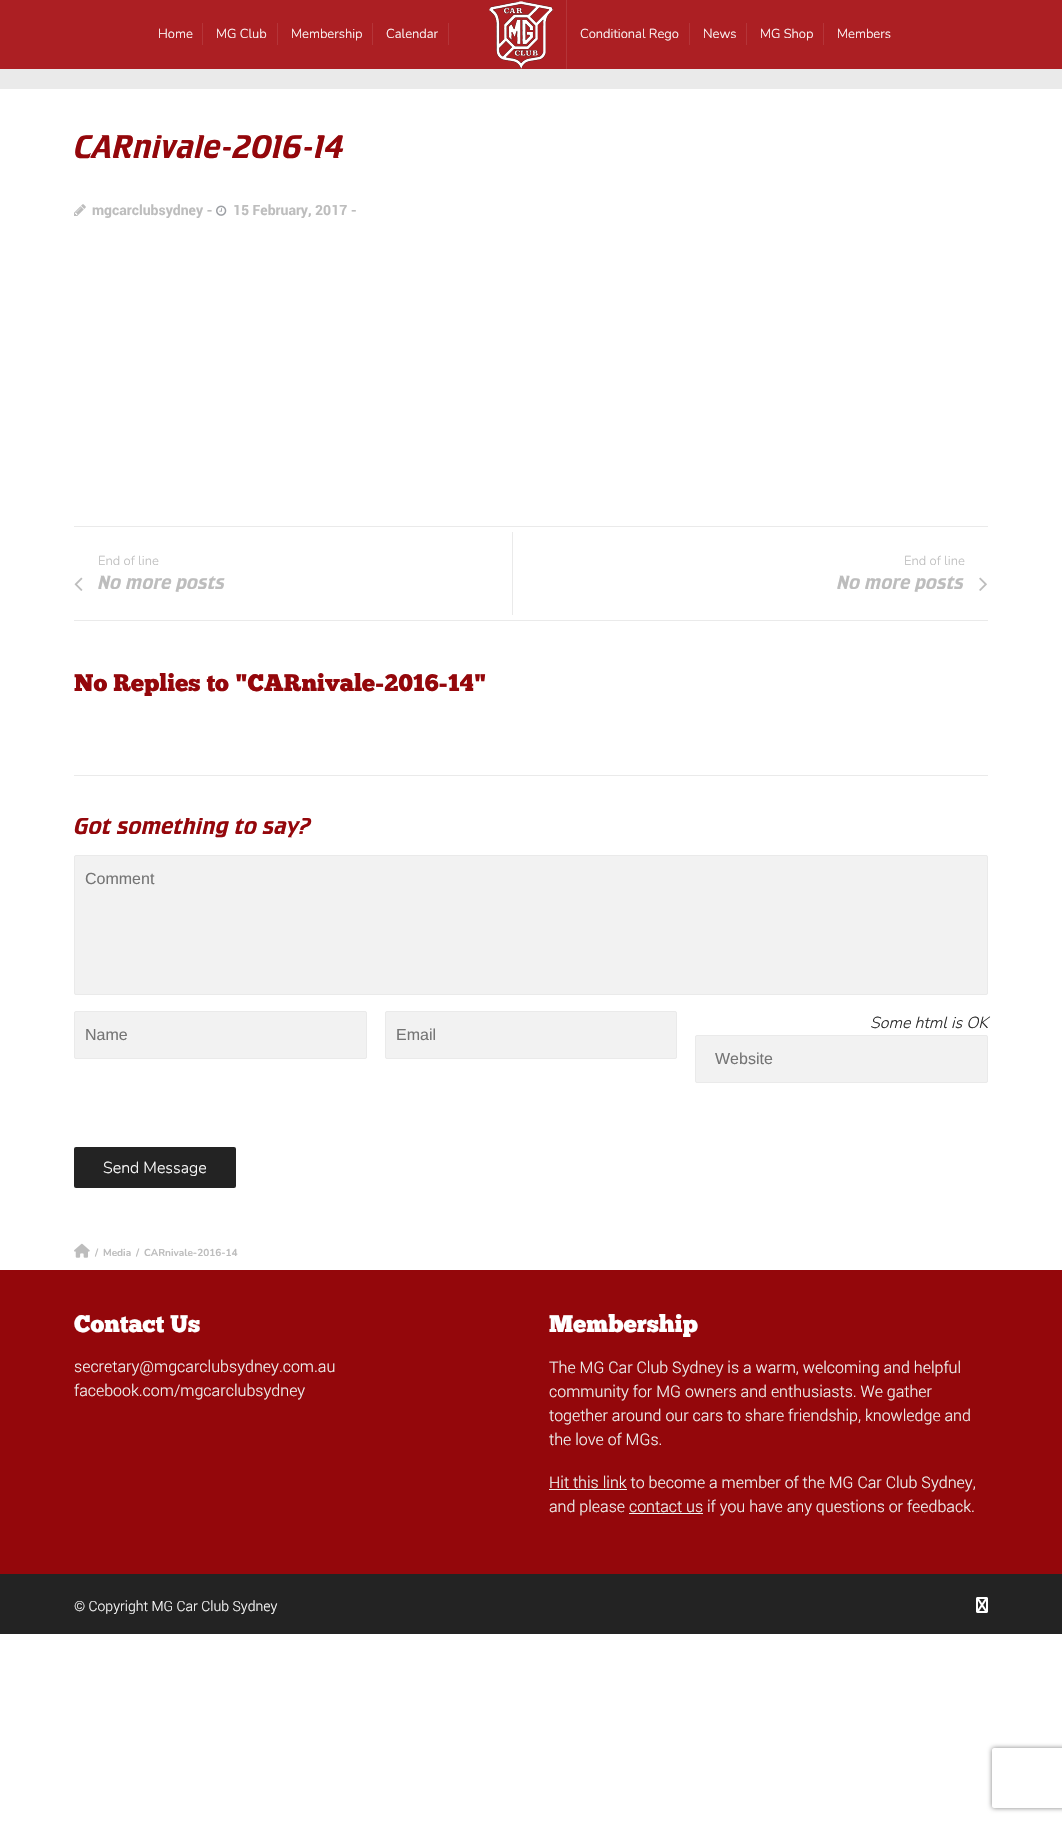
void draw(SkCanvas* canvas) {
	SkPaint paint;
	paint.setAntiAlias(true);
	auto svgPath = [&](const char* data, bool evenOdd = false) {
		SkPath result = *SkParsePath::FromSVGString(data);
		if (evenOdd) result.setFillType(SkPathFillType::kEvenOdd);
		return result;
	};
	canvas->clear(0xffffffff);
	paint.setColor(0xffac1f23);
	canvas->drawRect(SkRect::MakeXYWH(0, 0, 1062, 69), paint);
	paint.setColor(0xffb43539);
	canvas->drawRect(SkRect::MakeXYWH(202, 23, 1, 22), paint);
	SkFont f1(fontMgr->matchFamilyStyle("Nunito", SkFontStyle(200, SkFontStyle::kNormal_Width, SkFontStyle::kUpright_Slant)), 13);
	f1.setSubpixel(true);
	paint.setColor(0xffffffff);
	canvas->drawString("Home", 158, 38, f1, paint);
	paint.setColor(0xffb43539);
	canvas->drawRect(SkRect::MakeXYWH(277, 23, 1, 22), paint);
	paint.setColor(0xffffffff);
	canvas->drawString("MG Club", 216, 38, f1, paint);
	paint.setColor(0xffb43539);
	canvas->drawRect(SkRect::MakeXYWH(372, 23, 1, 22), paint);
	paint.setColor(0xffffffff);
	canvas->drawString("Membership", 291, 38, f1, paint);
	paint.setColor(0xffb43539);
	canvas->drawRect(SkRect::MakeXYWH(448, 23, 1, 22), paint);
	paint.setColor(0xffffffff);
	canvas->drawString("Calendar", 386, 38, f1, paint);
	paint.setColor(0xffb43539);
	canvas->drawRect(SkRect::MakeXYWH(566, 0, 1, 69), paint);
	canvas->drawImageRect(SkImages::DeferredFromEncodedData(SkData::MakeFromFileName("img1.png")), SkRect::MakeXYWH(489, 1, 65, 68), SkSamplingOptions());
	canvas->drawRect(SkRect::MakeXYWH(689, 23, 1, 22), paint);
	paint.setColor(0xffffffff);
	canvas->drawString("Conditional Rego", 580, 38, f1, paint);
	paint.setColor(0xffb43539);
	canvas->drawRect(SkRect::MakeXYWH(746, 23, 1, 22), paint);
	paint.setColor(0xffffffff);
	canvas->drawString("News", 703, 38, f1, paint);
	paint.setColor(0xffb43539);
	canvas->drawRect(SkRect::MakeXYWH(823, 23, 1, 22), paint);
	paint.setColor(0xffffffff);
	canvas->drawString("MG Shop", 760, 38, f1, paint);
	canvas->drawString("Members", 837, 38, f1, paint);
	paint.setColor(0xffeaeaea);
	canvas->drawRect(SkRect::MakeXYWH(0, 69, 1062, 20), paint);
	SkFont f2(fontMgr->matchFamilyStyle("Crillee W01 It", SkFontStyle::Normal()), 34);
	f2.setSubpixel(true);
	paint.setColor(0xff94070b);
	canvas->drawString("CARnivale-2016-14", 74, 158, f2, paint);
	canvas->drawImageRect(SkImages::DeferredFromEncodedData(SkData::MakeFromFileName("img2.png")), SkRect::MakeXYWH(74, 204, 12, 12), SkSamplingOptions());
	SkFont f3(fontMgr->matchFamilyStyle("Roboto", SkFontStyle::Bold()), 14);
	f3.setSubpixel(true);
	paint.setColor(0xffbdbdbd);
	canvas->drawString("mgcarclubsydney -", 92, 215, f3, paint);
	canvas->drawImageRect(SkImages::DeferredFromEncodedData(SkData::MakeFromFileName("img3.png")), SkRect::MakeXYWH(216, 205, 11, 11), SkSamplingOptions());
	canvas->drawString("15 February, 2017 -", 233, 215, f3, paint);
	paint.setColor(0xffeaeaea);
	canvas->drawRect(SkRect::MakeXYWH(74, 526, 914, 1), paint);
	canvas->drawRect(SkRect::MakeXYWH(74, 620, 914, 1), paint);
	canvas->drawRect(SkRect::MakeXYWH(512, 532, 1, 83), paint);
	paint.setColor(0xffbdbdbd);
	canvas->drawString("End of line", 98, 565, f1, paint);
	canvas->drawImageRect(SkImages::DeferredFromEncodedData(SkData::MakeFromFileName("img4.png")), SkRect::MakeXYWH(74, 577, 9, 14), SkSamplingOptions());
	SkFont f4(fontMgr->matchFamilyStyle("Crillee W01 It", SkFontStyle::Normal()), 20);
	f4.setSubpixel(true);
	canvas->drawString("No more posts", 98, 589, f4, paint);
	canvas->drawString("End of line", 904, 565, f1, paint);
	canvas->drawString("No more posts", 837, 589, f4, paint);
	canvas->drawImageRect(SkImages::DeferredFromEncodedData(SkData::MakeFromFileName("img5.png")), SkRect::MakeXYWH(979, 577, 8, 14), SkSamplingOptions());
	SkFont f5(fontMgr->matchFamilyStyle("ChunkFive", SkFontStyle::Normal()), 24);
	f5.setSubpixel(true);
	paint.setColor(0xff94070b);
	canvas->drawString("No Replies to \"CARnivale-2016-14\"", 74, 691, f5, paint);
	paint.setColor(0xffeaeaea);
	canvas->drawRect(SkRect::MakeXYWH(74, 775, 914, 1), paint);
	SkFont f6(fontMgr->matchFamilyStyle("Crillee W01 It", SkFontStyle::Normal()), 24);
	f6.setSubpixel(true);
	paint.setColor(0xff94070b);
	canvas->drawString("Got something to say?", 74, 834, f6, paint);
	paint.setColor(0xfff2f2f2);
	canvas->drawRoundRect(SkRect::MakeXYWH(74.5, 855.5, 913, 139), 1.5, 1.5, paint);
	paint.setStroke(true);
	paint.setStrokeWidth(1);
	paint.setColor(0xffeaeaea);
	canvas->drawRoundRect(SkRect::MakeXYWH(74.5, 855.5, 913, 139), 1.5, 1.5, paint);
	SkFont f7(fontMgr->matchFamilyStyle("Liberation Sans", SkFontStyle::Normal()), 16);
	f7.setSubpixel(true);
	paint.setStroke(false);
	paint.setColor(0xff757575);
	canvas->drawString("Comment", 85, 884, f7, paint);
	SkFont f8(fontMgr->matchFamilyStyle("Nunito", SkFontStyle(200, SkFontStyle::kNormal_Width, SkFontStyle::kItalic_Slant)), 16);
	f8.setSubpixel(true);
	paint.setColor(0xff2b2b2b);
	canvas->drawString("Some html is OK", 870, 1028, f8, paint);
	paint.setColor(0xfff2f2f2);
	canvas->drawRoundRect(SkRect::MakeXYWH(74.5, 1011.5, 292, 47), 1.5, 1.5, paint);
	paint.setStroke(true);
	paint.setColor(0xffeaeaea);
	canvas->drawRoundRect(SkRect::MakeXYWH(74.5, 1011.5, 292, 47), 1.5, 1.5, paint);
	paint.setStroke(false);
	paint.setColor(0xff757575);
	canvas->drawString("Name", 85, 1040, f7, paint);
	paint.setColor(0xfff2f2f2);
	canvas->drawRoundRect(SkRect::MakeXYWH(385.5, 1011.5, 291, 47), 1.5, 1.5, paint);
	paint.setStroke(true);
	paint.setColor(0xffeaeaea);
	canvas->drawRoundRect(SkRect::MakeXYWH(385.5, 1011.5, 291, 47), 1.5, 1.5, paint);
	paint.setStroke(false);
	paint.setColor(0xff757575);
	canvas->drawString("Email", 396, 1040, f7, paint);
	paint.setColor(0xfff2f2f2);
	canvas->drawRoundRect(SkRect::MakeXYWH(695.5, 1035.5, 292, 47), 1.5, 1.5, paint);
	paint.setStroke(true);
	paint.setColor(0xffeaeaea);
	canvas->drawRoundRect(SkRect::MakeXYWH(695.5, 1035.5, 292, 47), 1.5, 1.5, paint);
	paint.setStroke(false);
	paint.setColor(0xff757575);
	canvas->drawString("Website", 715, 1064, f7, paint);
	paint.setColor(0xff232323);
	canvas->drawRoundRect(SkRect::MakeXYWH(74, 1147, 162, 41), 2, 2, paint);
	SkFont f9(fontMgr->matchFamilyStyle("Nunito", SkFontStyle(200, SkFontStyle::kNormal_Width, SkFontStyle::kUpright_Slant)), 16);
	f9.setSubpixel(true);
	paint.setColor(0xffffffff);
	canvas->drawString("Send Message", 103, 1173, f9, paint);
	canvas->drawImageRect(SkImages::DeferredFromEncodedData(SkData::MakeFromFileName("img6.png")), SkRect::MakeXYWH(74, 1243, 16, 15), SkSamplingOptions());
	SkFont f10(fontMgr->matchFamilyStyle("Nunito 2", SkFontStyle(200, SkFontStyle::kNormal_Width, SkFontStyle::kUpright_Slant)), 10);
	f10.setSubpixel(true);
	paint.setColor(0xffbdbdbd);
	canvas->drawString("/", 95, 1256, f10, paint);
	canvas->drawString("Media", 103, 1256, f10, paint);
	canvas->drawString("/", 136, 1256, f10, paint);
	canvas->drawString("CARnivale-2016-14", 144, 1256, f10, paint);
	paint.setColor(0xff94070b);
	canvas->drawRect(SkRect::MakeXYWH(0, 1270, 1062, 304), paint);
	paint.setColor(0xffffffff);
	canvas->drawString("Contact Us", 74, 1332, f5, paint);
	SkFont f11(fontMgr->matchFamilyStyle("Roboto", SkFontStyle(300, SkFontStyle::kNormal_Width, SkFontStyle::kUpright_Slant)), 16);
	f11.setSubpixel(true);
	paint.setColor(0xfff0f6f3);
	canvas->drawString("secretary@mgcarclubsydney.com.au", 74, 1372, f11, paint);
	canvas->drawString("facebook.com/mgcarclubsydney", 74, 1396, f11, paint);
	paint.setColor(0xffffffff);
	canvas->drawString("Membership", 549, 1332, f5, paint);
	paint.setColor(0xfff0f6f3);
	canvas->drawString("The MG Car Club Sydney is a warm, welcoming and helpful", 549, 1373, f11, paint);
	canvas->drawString("community for MG owners and enthusiasts. We gather", 549, 1397, f11, paint);
	canvas->drawString("together around our cars to share friendship, knowledge and", 549, 1421, f11, paint);
	canvas->drawString("the love of MGs.", 549, 1445, f11, paint);
	canvas->drawRect(SkRect::MakeXYWH(549, 1489, 78, 1), paint);
	canvas->drawString("Hit this link to become a member of the MG Car Club Sydney,", 549, 1488, f11, paint);
	canvas->drawString("and please contact us if you have any questions or feedback.", 549, 1512, f11, paint);
	canvas->drawRect(SkRect::MakeXYWH(629, 1513, 74, 1), paint);
	paint.setColor(0xff232323);
	canvas->drawRect(SkRect::MakeXYWH(0, 1574, 1062, 60), paint);
	SkFont f12(fontMgr->matchFamilyStyle("Roboto", SkFontStyle(300, SkFontStyle::kNormal_Width, SkFontStyle::kUpright_Slant)), 14);
	f12.setSubpixel(true);
	paint.setColor(0xffffffff);
	canvas->drawString("© Copyright MG Car Club Sydney", 74, 1611, f12, paint);
	canvas->drawImageRect(SkImages::DeferredFromEncodedData(SkData::MakeFromFileName("img7.png")), SkRect::MakeXYWH(976, 1597, 12, 16), SkSamplingOptions());
	canvas->save();
	canvas->clipPath(svgPath("M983 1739H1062V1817H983ZM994 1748H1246C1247 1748 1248 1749 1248 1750V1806C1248 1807 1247 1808 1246 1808H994C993 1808 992 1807 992 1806V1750C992 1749 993 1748 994 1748Z", true), true);
	paint.setColor(0xff808080);
	paint.setMaskFilter(SkMaskFilter::MakeBlur(kNormal_SkBlurStyle, 2.5));
	canvas->drawRoundRect(SkRect::MakeXYWH(992, 1748, 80, 60), 2, 2, paint);
	paint.setMaskFilter(nullptr);
	canvas->restore();
}
